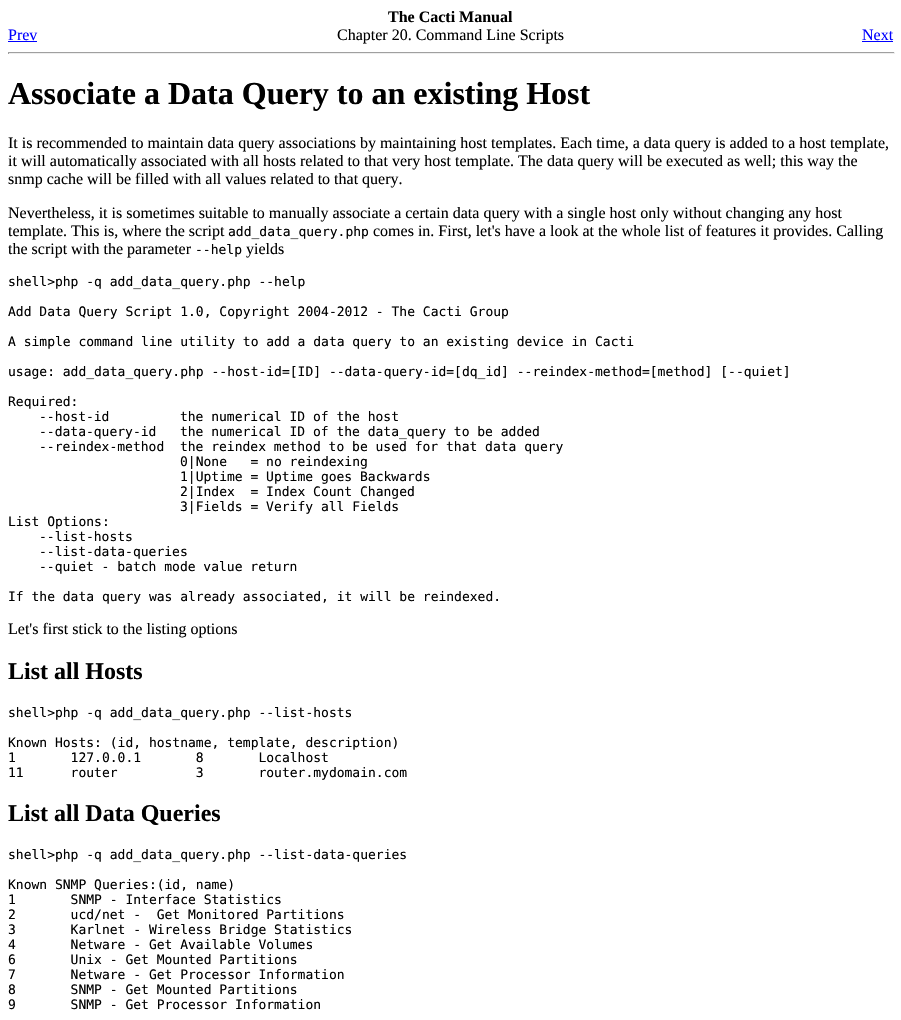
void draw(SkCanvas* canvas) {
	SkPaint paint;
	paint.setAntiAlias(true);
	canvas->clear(0xffffffff);
	SkFont f1(fontMgr->matchFamilyStyle("Liberation Serif", SkFontStyle::Bold()), 16);
	f1.setSubpixel(true);
	paint.setColor(0xff000000);
	canvas->drawString("The Cacti Manual", 388, 22, f1, paint);
	SkFont f2(fontMgr->matchFamilyStyle("Liberation Serif", SkFontStyle::Normal()), 16);
	f2.setSubpixel(true);
	paint.setColor(0xff0000ff);
	canvas->drawString("Prev", 8, 40, f2, paint);
	canvas->drawRect(SkRect::MakeXYWH(8, 41, 29, 1), paint);
	paint.setColor(0xff000000);
	canvas->drawString("Chapter 20. Command Line Scripts", 337, 40, f2, paint);
	paint.setColor(0xff0000ff);
	canvas->drawString("Next", 862, 40, f2, paint);
	canvas->drawRect(SkRect::MakeXYWH(862, 41, 31, 1), paint);
	paint.setColor(0xff9f9f9f);
	canvas->drawRect(SkRect::MakeXYWH(8, 52, 887, 1), paint);
	paint.setColor(0xffeeeeee);
	canvas->drawRect(SkRect::MakeXYWH(894, 52, 1, 2), paint);
	canvas->drawRect(SkRect::MakeXYWH(8, 53, 887, 1), paint);
	paint.setColor(0xff9f9f9f);
	canvas->drawRect(SkRect::MakeXYWH(8, 52, 1, 2), paint);
	SkFont f3(fontMgr->matchFamilyStyle("Liberation Serif", SkFontStyle::Bold()), 32);
	f3.setSubpixel(true);
	paint.setColor(0xff000000);
	canvas->drawString("Associate a Data Query to an existing Host", 8, 104, f3, paint);
	canvas->drawString("It is recommended to maintain data query associations by maintaining host templates. Each time, a data query is added to a host template,", 8, 148, f2, paint);
	canvas->drawString("it will automatically associated with all hosts related to that very host template. The data query will be executed as well; this way the", 8, 166, f2, paint);
	canvas->drawString("snmp cache will be filled with all values related to that query.", 8, 184, f2, paint);
	canvas->drawString("Nevertheless, it is sometimes suitable to manually associate a certain data query with a single host only without changing any host", 8, 218, f2, paint);
	canvas->drawString("template. This is, where the script", 8, 236, f2, paint);
	SkFont f4(fontMgr->matchFamilyStyle("DejaVu Sans Mono", SkFontStyle::Normal()), 13);
	f4.setSubpixel(true);
	canvas->drawString("add_data_query.php", 228, 236, f4, paint);
	canvas->drawString("comes in. First, let's have a look at the whole list of features it provides. Calling", 373, 236, f2, paint);
	canvas->drawString("the script with the parameter", 8, 254, f2, paint);
	canvas->drawString("--help", 195, 254, f4, paint);
	canvas->drawString("yields", 246, 254, f2, paint);
	canvas->drawString("shell>php -q add_data_query.php --help", 8, 286, f4, paint);
	canvas->drawString("Add Data Query Script 1.0, Copyright 2004-2012 - The Cacti Group", 8, 316, f4, paint);
	canvas->drawString("A simple command line utility to add a data query to an existing device in Cacti", 8, 346, f4, paint);
	canvas->drawString("usage: add_data_query.php --host-id=[ID] --data-query-id=[dq_id] --reindex-method=[method] [--quiet]", 8, 376, f4, paint);
	canvas->drawString("Required:", 8, 406, f4, paint);
	canvas->drawString("--host-id         the numerical ID of the host", 39, 421, f4, paint);
	canvas->drawString("--data-query-id   the numerical ID of the data_query to be added", 39, 436, f4, paint);
	canvas->drawString("--reindex-method  the reindex method to be used for that data query", 39, 451, f4, paint);
	canvas->drawString("0|None   = no reindexing", 180, 466, f4, paint);
	canvas->drawString("1|Uptime = Uptime goes Backwards", 180, 481, f4, paint);
	canvas->drawString("2|Index  = Index Count Changed", 180, 496, f4, paint);
	canvas->drawString("3|Fields = Verify all Fields", 180, 511, f4, paint);
	canvas->drawString("List Options:", 8, 526, f4, paint);
	canvas->drawString("--list-hosts", 39, 541, f4, paint);
	canvas->drawString("--list-data-queries", 39, 556, f4, paint);
	canvas->drawString("--quiet - batch mode value return", 39, 571, f4, paint);
	canvas->drawString("If the data query was already associated, it will be reindexed.", 8, 601, f4, paint);
	canvas->drawString("Let's first stick to the listing options", 8, 634, f2, paint);
	SkFont f5(fontMgr->matchFamilyStyle("Liberation Serif", SkFontStyle::Bold()), 24);
	f5.setSubpixel(true);
	canvas->drawString("List all Hosts", 8, 679, f5, paint);
	canvas->drawString("shell>php -q add_data_query.php --list-hosts", 8, 717, f4, paint);
	canvas->drawString("Known Hosts: (id, hostname, template, description)", 8, 747, f4, paint);
	canvas->drawString("1       127.0.0.1       8       Localhost", 8, 762, f4, paint);
	canvas->drawString("11      router          3       router.mydomain.com", 8, 777, f4, paint);
	canvas->drawString("List all Data Queries", 8, 821, f5, paint);
	canvas->drawString("shell>php -q add_data_query.php --list-data-queries", 8, 859, f4, paint);
	canvas->drawString("Known SNMP Queries:(id, name)", 8, 889, f4, paint);
	canvas->drawString("1       SNMP - Interface Statistics", 8, 904, f4, paint);
	canvas->drawString("2       ucd/net -  Get Monitored Partitions", 8, 919, f4, paint);
	canvas->drawString("3       Karlnet - Wireless Bridge Statistics", 8, 934, f4, paint);
	canvas->drawString("4       Netware - Get Available Volumes", 8, 949, f4, paint);
	canvas->drawString("6       Unix - Get Mounted Partitions", 8, 964, f4, paint);
	canvas->drawString("7       Netware - Get Processor Information", 8, 979, f4, paint);
	canvas->drawString("8       SNMP - Get Mounted Partitions", 8, 994, f4, paint);
	canvas->drawString("9       SNMP - Get Processor Information", 8, 1009, f4, paint);
}
